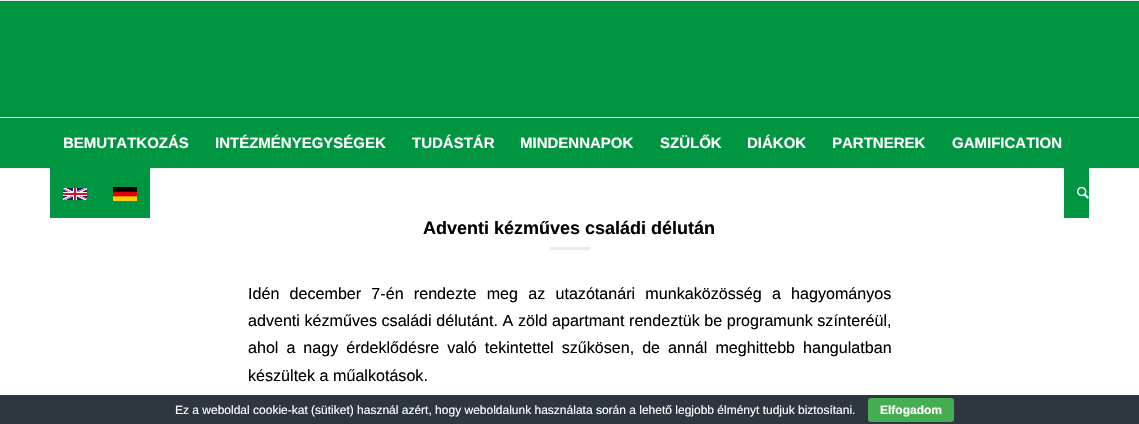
void draw(SkCanvas* canvas) {
	SkPaint paint;
	paint.setAntiAlias(true);
	auto spacedText = [&](const char* s, float x, float y, const SkFont& font, const SkPaint& ink, float letter, float word) {
		std::vector<SkGlyphID> glyphs(font.countText(s, strlen(s), SkTextEncoding::kUTF8));
		std::vector<float> xs(glyphs.size());
		font.textToGlyphs(s, strlen(s), SkTextEncoding::kUTF8, glyphs);
		font.getXPos(glyphs, xs, x);
		float extra = 0;
		for (size_t i = 0; i < glyphs.size(); i++) {
			xs[i] += extra;
			extra += letter + word * (glyphs[i] == font.unicharToGlyph(' '));
		}
		canvas->drawTextBlob(SkTextBlob::MakeFromPosHGlyphs(glyphs, xs, y, font), 0, 0, ink);
	};
	canvas->clear(0xff009641);
	paint.setColor(0xffebebeb);
	canvas->drawRect(SkRect::MakeXYWH(0, 0, 1139, 1), paint);
	canvas->drawRect(SkRect::MakeXYWH(0, 168, 1139, 1), paint);
	canvas->drawRect(SkRect::MakeXYWH(0, 117, 1139, 1), paint);
	SkFont f1(fontMgr->matchFamilyStyle("Liberation Sans", SkFontStyle::Bold()), 15);
	f1.setSubpixel(true);
	paint.setColor(0xffffffff);
	canvas->drawString("BEMUTATKOZÁS", 63, 148, f1, paint);
	canvas->drawString("INTÉZMÉNYEGYSÉGEK", 215, 148, f1, paint);
	canvas->drawString("TUDÁSTÁR", 412, 148, f1, paint);
	canvas->drawString("MINDENNAPOK", 520, 148, f1, paint);
	canvas->drawString("SZÜLŐK", 660, 148, f1, paint);
	canvas->drawString("DIÁKOK", 747, 148, f1, paint);
	canvas->drawString("PARTNEREK", 832, 148, f1, paint);
	canvas->drawString("GAMIFICATION", 952, 148, f1, paint);
	canvas->drawRect(SkRect::MakeXYWH(0, 169, 1139, 226), paint);
	paint.setColor(0xff009641);
	canvas->drawRect(SkRect::MakeXYWH(50, 168, 100, 50), paint);
	canvas->drawImageRect(SkImages::DeferredFromEncodedData(SkData::MakeFromFileName("img1.png")), SkRect::MakeXYWH(63, 188, 24, 12), SkSamplingOptions());
	canvas->drawRect(SkRect::MakeXYWH(1064, 168, 25, 50), paint);
	canvas->drawImageRect(SkImages::DeferredFromEncodedData(SkData::MakeFromFileName("img2.png")), SkRect::MakeXYWH(1077, 186, 12, 13), SkSamplingOptions());
	canvas->drawImageRect(SkImages::DeferredFromEncodedData(SkData::MakeFromFileName("img3.png")), SkRect::MakeXYWH(113, 187, 24, 14), SkSamplingOptions());
	SkFont f2(fontMgr->matchFamilyStyle("Liberation Sans", SkFontStyle::Bold()), 18);
	f2.setSubpixel(true);
	paint.setColor(0xff000000);
	canvas->drawString("Adventi kézműves családi délután", 423, 234, f2, paint);
	paint.setColor(0xffebebeb);
	canvas->drawRect(SkRect::MakeXYWH(550, 247, 40, 3), paint);
	SkFont f3(fontMgr->matchFamilyStyle("Liberation Sans", SkFontStyle::Normal()), 16.1);
	f3.setSubpixel(true);
	paint.setColor(0xff000000);
	spacedText("Idén december 7-én rendezte meg az utazótanári munkaközösség a hagyományos", 248, 299, f3, paint, 0, 5.75);
	spacedText("adventi kézműves családi délutánt. A zöld apartmant rendeztük be programunk színteréül,", 248, 326, f3, paint, 0, 0.1);
	spacedText("ahol a nagy érdeklődésre való tekintettel szűkösen, de annál meghittebb hangulatban", 248, 353, f3, paint, 0, 3.5);
	canvas->drawString("készültek a műalkotások.", 248, 381, f3, paint);
	paint.setColor(0xff2e363f);
	canvas->drawRect(SkRect::MakeXYWH(0, 395, 1139, 29), paint);
	SkFont f4(fontMgr->matchFamilyStyle("Liberation Sans", SkFontStyle::Normal()), 12);
	f4.setSubpixel(true);
	paint.setColor(0xffffffff);
	canvas->drawString("Ez a weboldal cookie-kat (sütiket) használ azért, hogy weboldalunk használata során a lehető legjobb élményt tudjuk biztosítani.", 175, 414, f4, paint);
	paint.setColor(0xff45ae52);
	canvas->drawRoundRect(SkRect::MakeXYWH(868, 398, 86, 24), 3, 3, paint);
	SkFont f5(fontMgr->matchFamilyStyle("Liberation Sans", SkFontStyle::Bold()), 12);
	f5.setSubpixel(true);
	paint.setColor(0xffffffff);
	canvas->drawString("Elfogadom", 880, 414, f5, paint);
}
